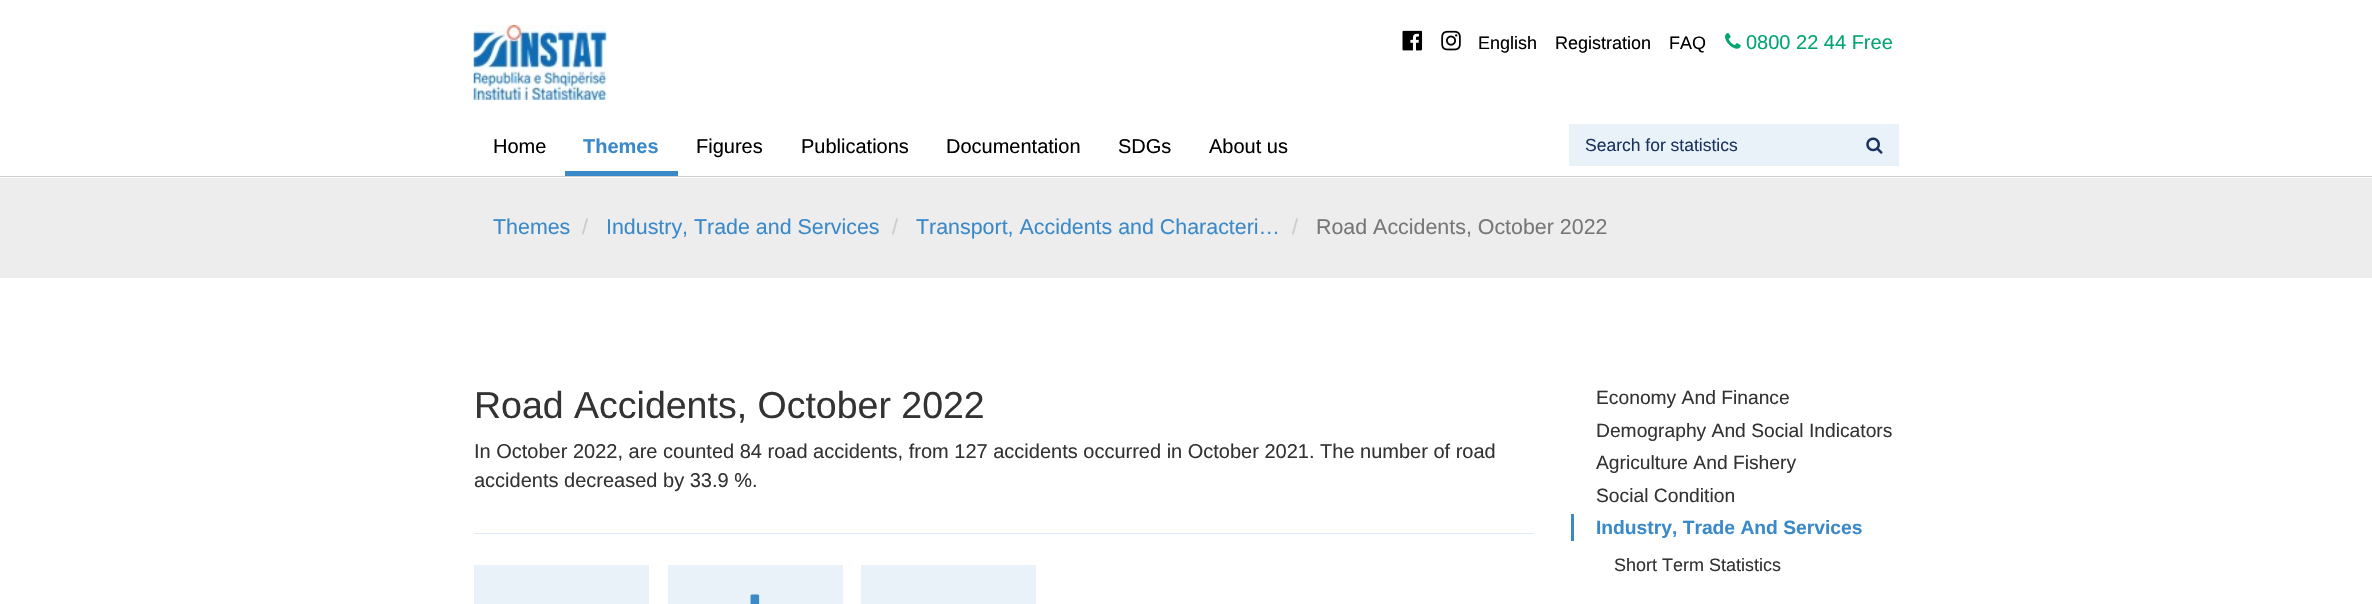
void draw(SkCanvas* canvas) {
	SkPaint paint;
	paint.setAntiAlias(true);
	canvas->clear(0xffededed);
	paint.setColor(0xffffffff);
	canvas->drawRect(SkRect::MakeXYWH(0, 0, 2372, 178), paint);
	paint.setColor(0xffcdcdcd);
	canvas->drawRect(SkRect::MakeXYWH(0, 176, 2372, 1), paint);
	canvas->drawImageRect(SkImages::DeferredFromEncodedData(SkData::MakeFromFileName("img1.png")), SkRect::MakeXYWH(473, 25, 134, 75), SkSamplingOptions());
	canvas->drawImageRect(SkImages::DeferredFromEncodedData(SkData::MakeFromFileName("img2.png")), SkRect::MakeXYWH(1402, 30, 21, 21), SkSamplingOptions());
	canvas->drawImageRect(SkImages::DeferredFromEncodedData(SkData::MakeFromFileName("img3.png")), SkRect::MakeXYWH(1441, 30, 20, 21), SkSamplingOptions());
	SkFont f1(fontMgr->matchFamilyStyle("Liberation Sans", SkFontStyle::Normal()), 18);
	f1.setSubpixel(true);
	paint.setColor(0xff000000);
	canvas->drawString("English", 1478, 49, f1, paint);
	canvas->drawString("Registration", 1555, 49, f1, paint);
	canvas->drawString("FAQ", 1669, 49, f1, paint);
	canvas->drawImageRect(SkImages::DeferredFromEncodedData(SkData::MakeFromFileName("img4.png")), SkRect::MakeXYWH(1725, 33, 16, 16), SkSamplingOptions());
	SkFont f2(fontMgr->matchFamilyStyle("Liberation Sans", SkFontStyle::Normal()), 20);
	f2.setSubpixel(true);
	paint.setColor(0xff00a572);
	canvas->drawString("0800 22 44 Free", 1746, 49, f2, paint);
	paint.setColor(0xff000000);
	canvas->drawString("Home", 493, 153, f2, paint);
	paint.setColor(0xff3a89c9);
	canvas->drawRect(SkRect::MakeXYWH(565, 171, 113, 5), paint);
	SkFont f3(fontMgr->matchFamilyStyle("Liberation Sans", SkFontStyle::Bold()), 20);
	f3.setSubpixel(true);
	canvas->drawString("Themes", 583, 153, f3, paint);
	paint.setColor(0xff000000);
	canvas->drawString("Figures", 696, 153, f2, paint);
	canvas->drawString("Publications", 801, 153, f2, paint);
	canvas->drawString("Documentation", 946, 153, f2, paint);
	canvas->drawString("SDGs", 1118, 153, f2, paint);
	canvas->drawString("About us", 1209, 153, f2, paint);
	paint.setColor(0xffe9f2f9);
	canvas->drawRect(SkRect::MakeXYWH(1569, 124, 330, 42), paint);
	canvas->drawImageRect(SkImages::DeferredFromEncodedData(SkData::MakeFromFileName("img5.png")), SkRect::MakeXYWH(1866, 137, 17, 17), SkSamplingOptions());
	SkFont f4(fontMgr->matchFamilyStyle("Liberation Sans", SkFontStyle::Normal()), 17.5);
	f4.setSubpixel(true);
	paint.setColor(0xff1b325f);
	canvas->drawString("Search for statistics", 1585, 151, f4, paint);
	SkFont f5(fontMgr->matchFamilyStyle("Liberation Sans", SkFontStyle::Normal()), 21.4);
	f5.setSubpixel(true);
	paint.setColor(0xff3a89c9);
	canvas->drawString("Themes", 493, 234, f5, paint);
	paint.setColor(0xffcccccc);
	canvas->drawString("/", 582, 234, f5, paint);
	paint.setColor(0xff3a89c9);
	canvas->drawString("Industry, Trade and Services", 606, 234, f5, paint);
	paint.setColor(0xffcccccc);
	canvas->drawString("/", 892, 234, f5, paint);
	paint.setColor(0xff3a89c9);
	canvas->drawString("Transport, Accidents and Characteri…", 916, 234, f5, paint);
	paint.setColor(0xffcccccc);
	canvas->drawString("/", 1292, 234, f5, paint);
	paint.setColor(0xff777777);
	canvas->drawString("Road Accidents, October 2022", 1316, 234, f5, paint);
	paint.setColor(0xffffffff);
	canvas->drawRect(SkRect::MakeXYWH(0, 278, 2372, 326), paint);
	SkFont f6(fontMgr->matchFamilyStyle("Liberation Sans", SkFontStyle::Normal()), 37.5);
	f6.setSubpixel(true);
	paint.setColor(0xff333333);
	canvas->drawString("Road Accidents, October 2022", 474, 418, f6, paint);
	canvas->drawString("In October 2022, are counted 84 road accidents, from 127 accidents occurred in October 2021. The number of road", 474, 458, f2, paint);
	canvas->drawString("accidents decreased by 33.9 %.", 474, 487, f2, paint);
	paint.setColor(0xffdfecf7);
	canvas->drawRect(SkRect::MakeXYWH(474, 533, 1060, 1), paint);
	paint.setColor(0xffe9f2f9);
	canvas->drawRect(SkRect::MakeXYWH(474, 565, 175, 39), paint);
	canvas->drawRect(SkRect::MakeXYWH(668, 565, 175, 39), paint);
	canvas->drawImageRect(SkImages::DeferredFromEncodedData(SkData::MakeFromFileName("img6.png")), SkRect::MakeXYWH(750, 594, 10, 10), SkSamplingOptions());
	canvas->drawRect(SkRect::MakeXYWH(861, 565, 175, 39), paint);
	SkFont f7(fontMgr->matchFamilyStyle("Liberation Sans", SkFontStyle::Normal()), 19.25);
	f7.setSubpixel(true);
	paint.setColor(0xff333333);
	canvas->drawString("Economy And Finance", 1596, 404, f7, paint);
	canvas->drawString("Demography And Social Indicators", 1596, 437, f7, paint);
	canvas->drawString("Agriculture And Fishery", 1596, 469, f7, paint);
	canvas->drawString("Social Condition", 1596, 502, f7, paint);
	paint.setColor(0xff3a89c9);
	canvas->drawRect(SkRect::MakeXYWH(1571, 514, 3, 27), paint);
	SkFont f8(fontMgr->matchFamilyStyle("Liberation Sans", SkFontStyle::Bold()), 19.25);
	f8.setSubpixel(true);
	canvas->drawString("Industry, Trade And Services", 1596, 534, f8, paint);
	paint.setColor(0xff333333);
	canvas->drawString("Short Term Statistics", 1614, 571, f1, paint);
}
